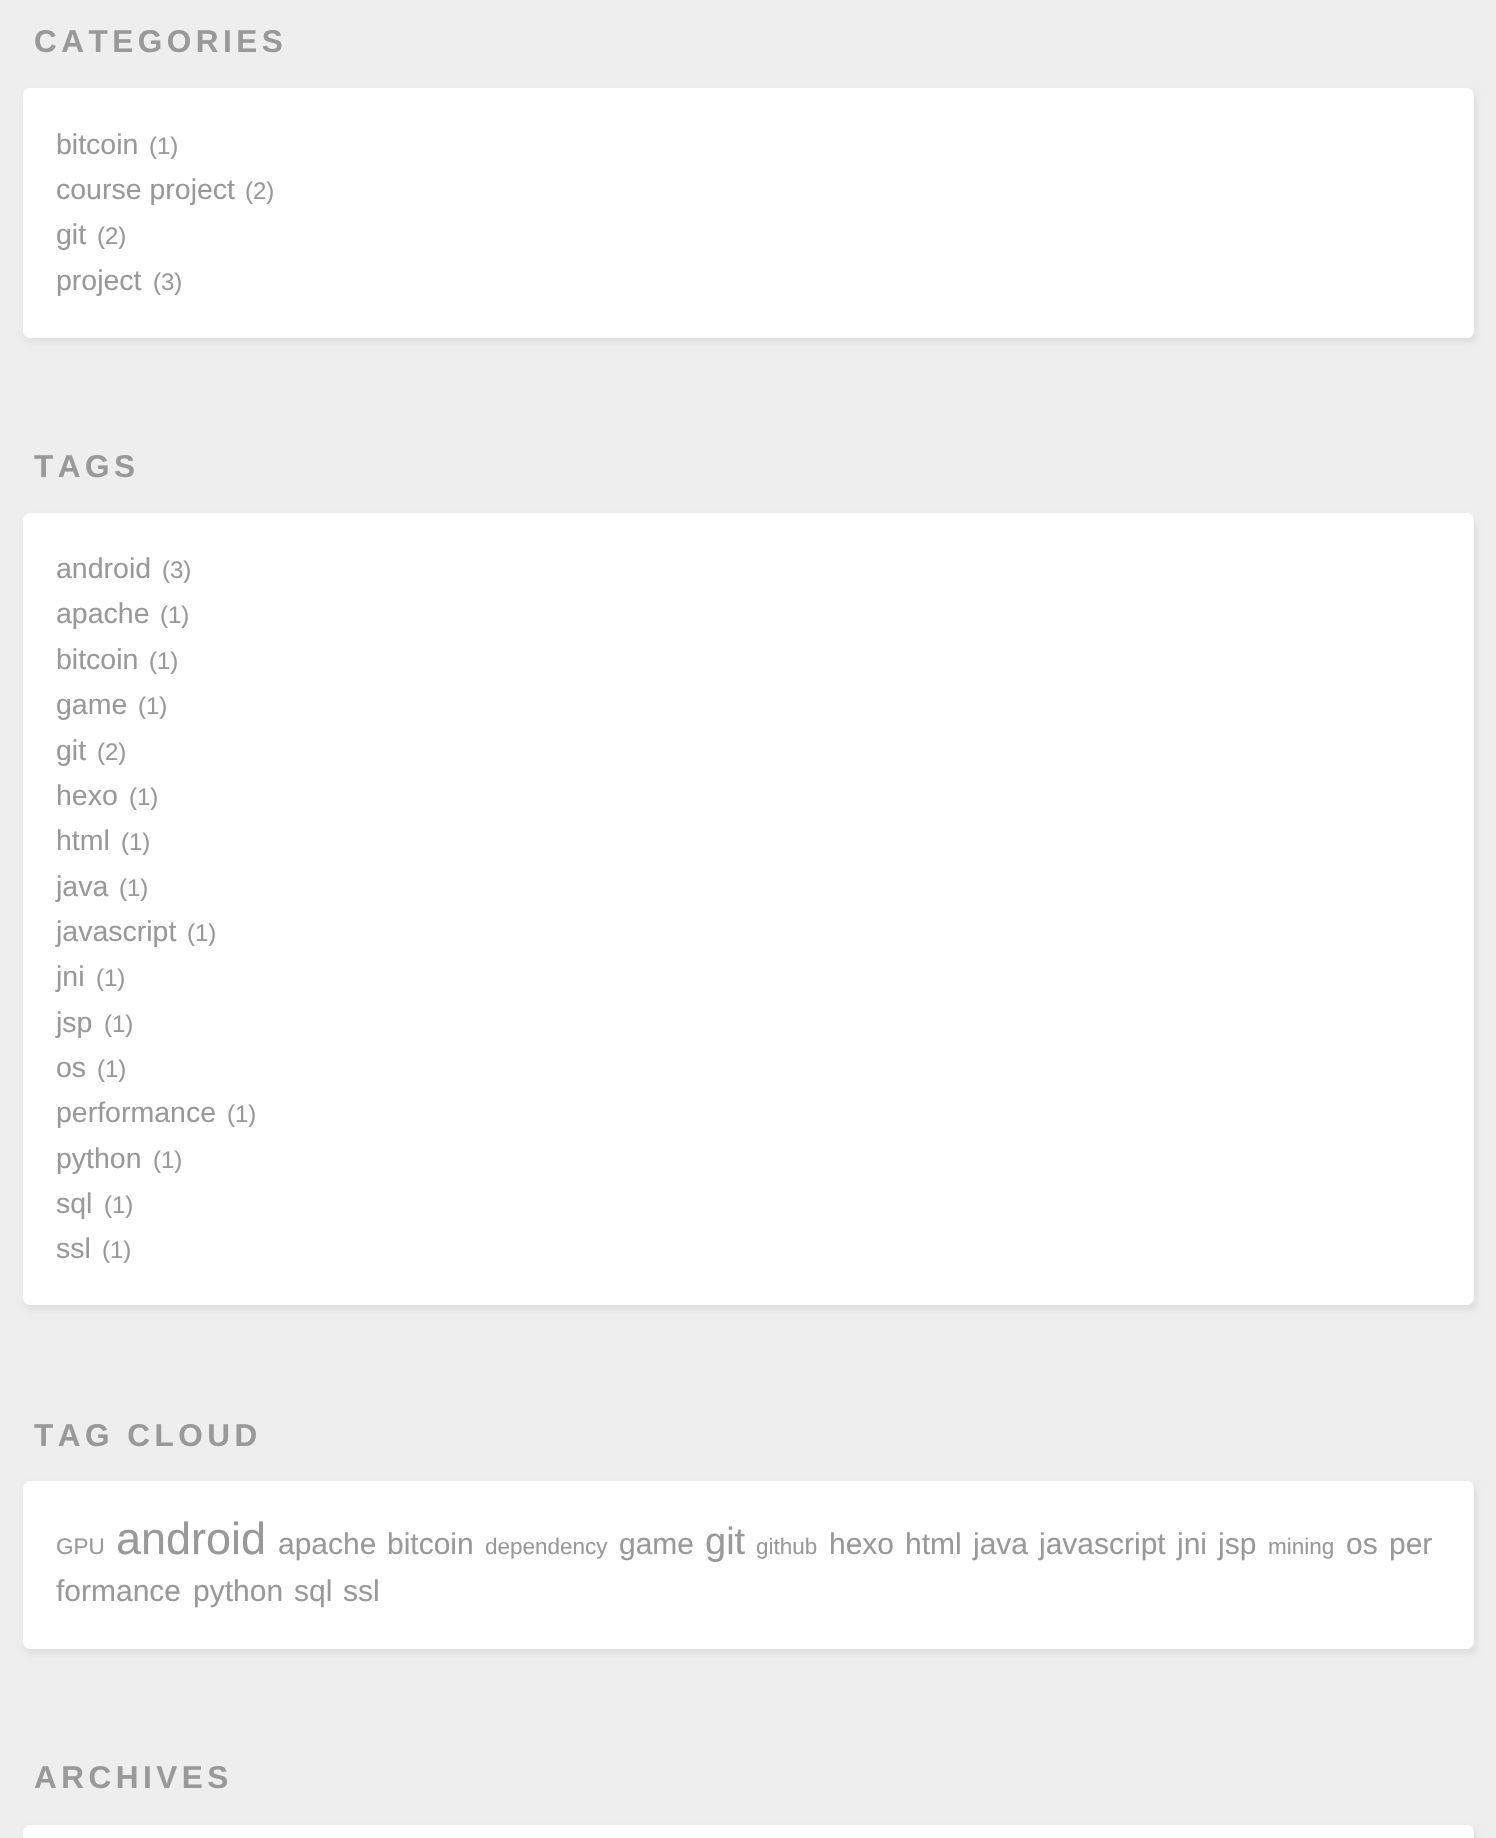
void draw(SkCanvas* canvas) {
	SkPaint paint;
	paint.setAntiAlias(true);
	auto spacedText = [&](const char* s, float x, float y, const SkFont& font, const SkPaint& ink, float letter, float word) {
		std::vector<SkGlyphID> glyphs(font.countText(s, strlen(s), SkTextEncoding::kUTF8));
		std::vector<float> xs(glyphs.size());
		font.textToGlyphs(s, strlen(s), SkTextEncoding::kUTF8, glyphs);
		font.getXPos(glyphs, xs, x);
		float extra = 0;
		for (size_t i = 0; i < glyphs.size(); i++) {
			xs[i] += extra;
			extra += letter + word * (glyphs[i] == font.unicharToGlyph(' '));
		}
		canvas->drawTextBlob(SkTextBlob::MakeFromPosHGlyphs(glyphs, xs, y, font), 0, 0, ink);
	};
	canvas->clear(0xffeeeeee);
	SkFont f1(fontMgr->matchFamilyStyle("Liberation Sans", SkFontStyle::Bold()), 31.5);
	f1.setSubpixel(true);
	paint.setColor(0xff999999);
	spacedText("CATEGORIES", 34, 52, f1, paint, 4.5, 0);
	paint.setColor(0xffdddddd);
	paint.setMaskFilter(SkMaskFilter::MakeBlur(kNormal_SkBlurStyle, 3.5));
	canvas->drawRoundRect(SkRect::MakeXYWH(25, 92, 1451, 250), 7, 7, paint);
	paint.setMaskFilter(nullptr);
	paint.setColor(0xffffffff);
	canvas->drawRoundRect(SkRect::MakeXYWH(23, 88, 1451, 250), 7, 7, paint);
	SkFont f2(fontMgr->matchFamilyStyle("Liberation Sans", SkFontStyle::Normal()), 28.5);
	f2.setSubpixel(true);
	paint.setColor(0xff999999);
	canvas->drawString("bitcoin", 56, 154, f2, paint);
	SkFont f3(fontMgr->matchFamilyStyle("Liberation Sans", SkFontStyle::Normal()), 24);
	f3.setSubpixel(true);
	canvas->drawString("(1)", 149, 154, f3, paint);
	canvas->drawString("course project", 56, 199, f2, paint);
	canvas->drawString("(2)", 245, 199, f3, paint);
	canvas->drawString("git", 56, 244, f2, paint);
	canvas->drawString("(2)", 97, 244, f3, paint);
	canvas->drawString("project", 56, 290, f2, paint);
	canvas->drawString("(3)", 153, 290, f3, paint);
	spacedText("TAGS", 34, 477, f1, paint, 4.5, 0);
	paint.setColor(0xffdddddd);
	paint.setMaskFilter(SkMaskFilter::MakeBlur(kNormal_SkBlurStyle, 3.5));
	canvas->drawRoundRect(SkRect::MakeXYWH(25, 518, 1451, 792), 7, 7, paint);
	paint.setMaskFilter(nullptr);
	paint.setColor(0xffffffff);
	canvas->drawRoundRect(SkRect::MakeXYWH(23, 513, 1451, 792), 7, 7, paint);
	paint.setColor(0xff999999);
	canvas->drawString("android", 56, 578, f2, paint);
	canvas->drawString("(3)", 162, 578, f3, paint);
	canvas->drawString("apache", 56, 623, f2, paint);
	canvas->drawString("(1)", 160, 623, f3, paint);
	canvas->drawString("bitcoin", 56, 669, f2, paint);
	canvas->drawString("(1)", 149, 669, f3, paint);
	canvas->drawString("game", 56, 714, f2, paint);
	canvas->drawString("(1)", 138, 714, f3, paint);
	canvas->drawString("git", 56, 760, f2, paint);
	canvas->drawString("(2)", 97, 760, f3, paint);
	canvas->drawString("hexo", 56, 805, f2, paint);
	canvas->drawString("(1)", 129, 805, f3, paint);
	canvas->drawString("html", 56, 850, f2, paint);
	canvas->drawString("(1)", 121, 850, f3, paint);
	canvas->drawString("java", 56, 896, f2, paint);
	canvas->drawString("(1)", 119, 896, f3, paint);
	canvas->drawString("javascript", 56, 941, f2, paint);
	canvas->drawString("(1)", 187, 941, f3, paint);
	canvas->drawString("jni", 56, 986, f2, paint);
	canvas->drawString("(1)", 96, 986, f3, paint);
	canvas->drawString("jsp", 56, 1032, f2, paint);
	canvas->drawString("(1)", 104, 1032, f3, paint);
	canvas->drawString("os", 56, 1077, f2, paint);
	canvas->drawString("(1)", 97, 1077, f3, paint);
	canvas->drawString("performance", 56, 1122, f2, paint);
	canvas->drawString("(1)", 227, 1122, f3, paint);
	canvas->drawString("python", 56, 1168, f2, paint);
	canvas->drawString("(1)", 153, 1168, f3, paint);
	canvas->drawString("sql", 56, 1213, f2, paint);
	canvas->drawString("(1)", 104, 1213, f3, paint);
	canvas->drawString("ssl", 56, 1258, f2, paint);
	canvas->drawString("(1)", 102, 1258, f3, paint);
	spacedText("TAG CLOUD", 34, 1446, f1, paint, 4.5, 0);
	paint.setColor(0xffdddddd);
	paint.setMaskFilter(SkMaskFilter::MakeBlur(kNormal_SkBlurStyle, 3.5));
	canvas->drawRoundRect(SkRect::MakeXYWH(25, 1485, 1451, 169), 7, 7, paint);
	paint.setMaskFilter(nullptr);
	paint.setColor(0xffffffff);
	canvas->drawRoundRect(SkRect::MakeXYWH(23, 1481, 1451, 168), 7, 7, paint);
	SkFont f4(fontMgr->matchFamilyStyle("Liberation Sans", SkFontStyle::Normal()), 22.5);
	f4.setSubpixel(true);
	paint.setColor(0xff999999);
	canvas->drawString("GPU", 56, 1554, f4, paint);
	SkFont f5(fontMgr->matchFamilyStyle("Liberation Sans", SkFontStyle::Normal()), 45);
	f5.setSubpixel(true);
	canvas->drawString("android", 116, 1554, f5, paint);
	SkFont f6(fontMgr->matchFamilyStyle("Liberation Sans", SkFontStyle::Normal()), 30);
	f6.setSubpixel(true);
	canvas->drawString("apache", 278, 1554, f6, paint);
	canvas->drawString("bitcoin", 387, 1554, f6, paint);
	canvas->drawString("dependency", 485, 1554, f4, paint);
	canvas->drawString("game", 619, 1554, f6, paint);
	SkFont f7(fontMgr->matchFamilyStyle("Liberation Sans", SkFontStyle::Normal()), 38);
	f7.setSubpixel(true);
	canvas->drawString("git", 705, 1554, f7, paint);
	canvas->drawString("github", 756, 1554, f4, paint);
	canvas->drawString("hexo", 829, 1554, f6, paint);
	canvas->drawString("html", 905, 1554, f6, paint);
	canvas->drawString("java", 973, 1554, f6, paint);
	canvas->drawString("javascript", 1039, 1554, f6, paint);
	canvas->drawString("jni", 1177, 1554, f6, paint);
	canvas->drawString("jsp", 1218, 1554, f6, paint);
	canvas->drawString("mining", 1268, 1554, f4, paint);
	canvas->drawString("os", 1346, 1554, f6, paint);
	canvas->drawString("per", 1389, 1554, f6, paint);
	canvas->drawString("formance", 56, 1601, f6, paint);
	canvas->drawString("python", 193, 1601, f6, paint);
	canvas->drawString("sql", 294, 1601, f6, paint);
	canvas->drawString("ssl", 343, 1601, f6, paint);
	spacedText("ARCHIVES", 34, 1788, f1, paint, 4.5, 0);
	paint.setColor(0xffdddddd);
	paint.setMaskFilter(SkMaskFilter::MakeBlur(kNormal_SkBlurStyle, 3.5));
	canvas->drawRoundRect(SkRect::MakeXYWH(25, 1829, 1451, 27), 7, 7, paint);
	paint.setMaskFilter(nullptr);
	paint.setColor(0xffffffff);
	canvas->drawRoundRect(SkRect::MakeXYWH(23, 1825, 1451, 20), 7, 7, paint);
}
